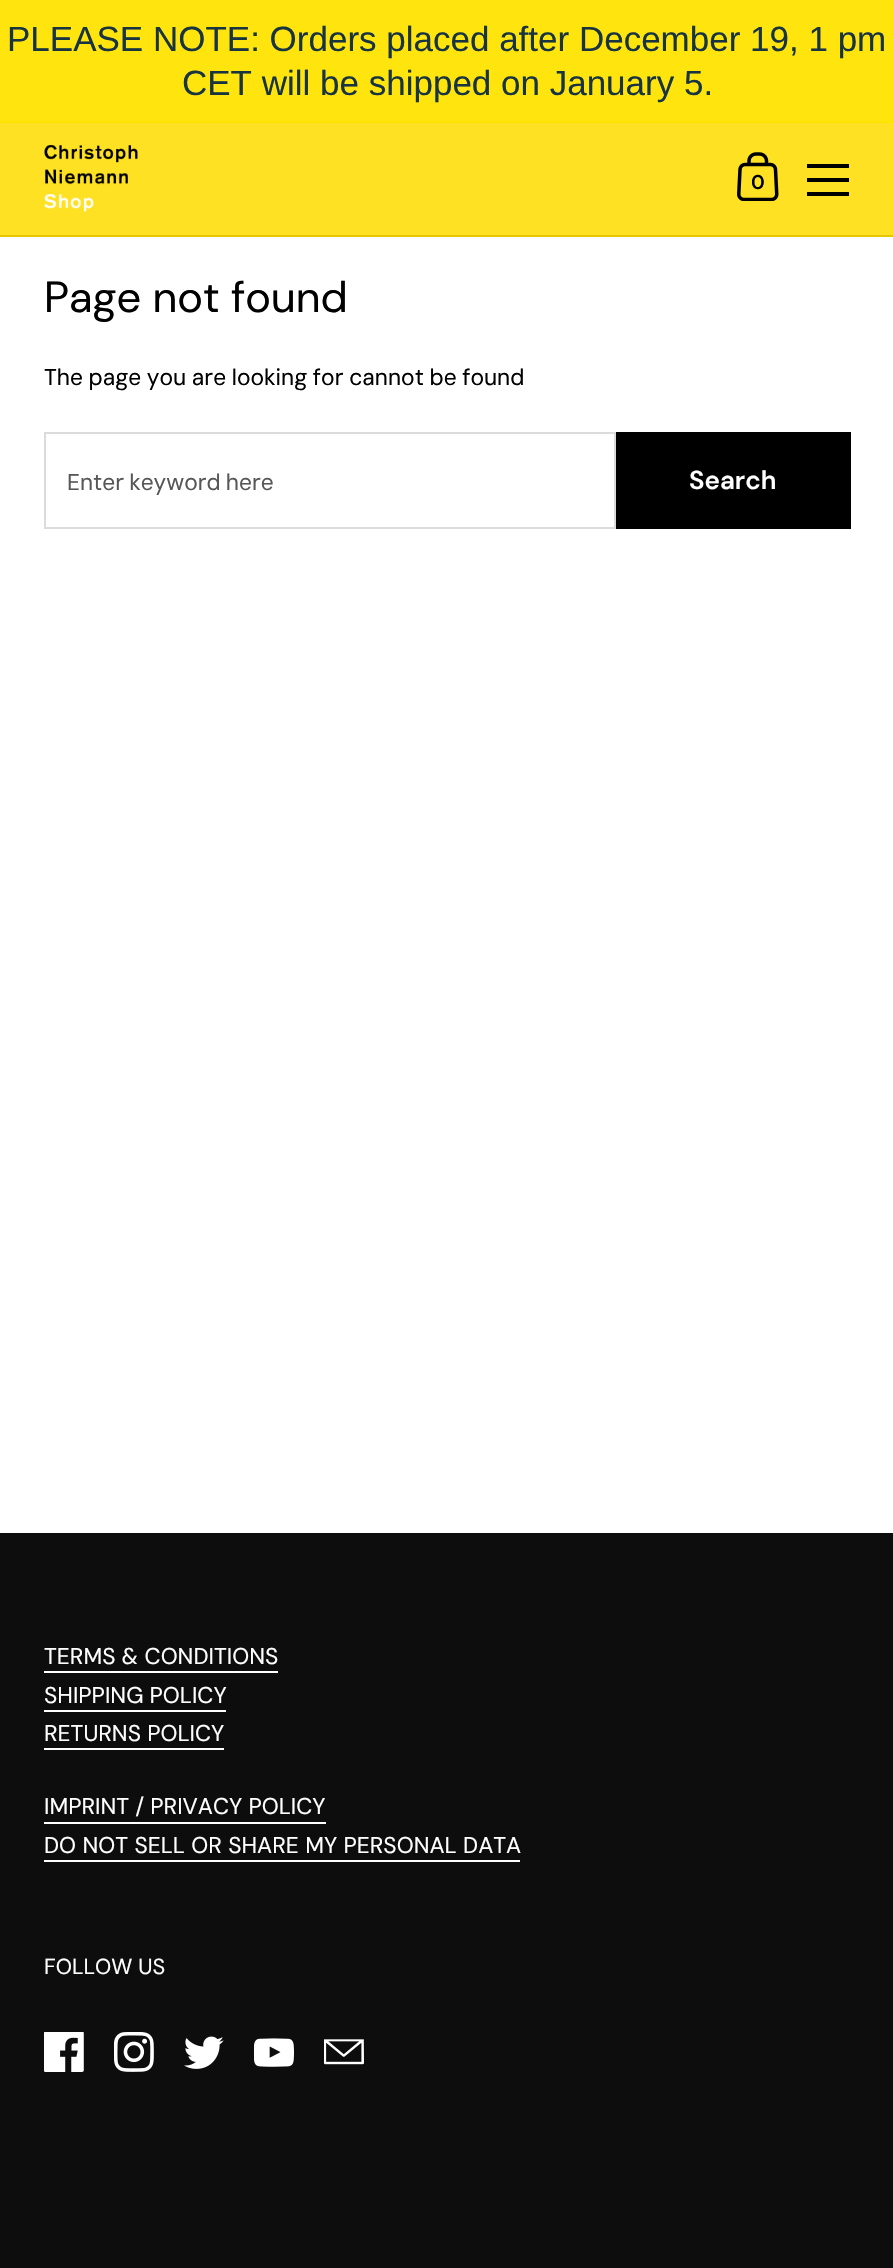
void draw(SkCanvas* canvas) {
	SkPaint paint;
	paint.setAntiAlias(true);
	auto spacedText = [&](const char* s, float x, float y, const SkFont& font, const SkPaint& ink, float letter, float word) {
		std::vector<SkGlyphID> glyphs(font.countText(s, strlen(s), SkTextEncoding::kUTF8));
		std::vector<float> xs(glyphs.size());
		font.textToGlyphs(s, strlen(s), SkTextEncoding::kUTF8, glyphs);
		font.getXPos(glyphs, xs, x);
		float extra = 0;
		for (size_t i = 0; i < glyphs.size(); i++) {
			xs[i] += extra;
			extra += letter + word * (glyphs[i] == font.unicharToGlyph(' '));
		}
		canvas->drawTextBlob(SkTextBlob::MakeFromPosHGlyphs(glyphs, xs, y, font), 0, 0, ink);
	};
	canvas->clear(0xffffffff);
	paint.setColor(0xffffe50d);
	canvas->drawRect(SkRect::MakeXYWH(0, 0, 893, 121), paint);
	SkFont f1(fontMgr->matchFamilyStyle("Liberation Sans", SkFontStyle::Normal()), 35);
	f1.setSubpixel(true);
	paint.setColor(0xff193441);
	canvas->drawString("PLEASE NOTE: Orders placed after December 19, 1 pm", 7, 51, f1, paint);
	canvas->drawString("CET will be shipped on January 5.", 182, 95, f1, paint);
	SkFont f2(fontMgr->matchFamilyStyle("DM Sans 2", SkFontStyle::Normal()), 43.5);
	f2.setSubpixel(true);
	paint.setColor(0xff000000);
	canvas->drawString("Page not found", 44, 312, f2, paint);
	SkFont f3(fontMgr->matchFamilyStyle("DM Sans", SkFontStyle::Normal()), 22.75);
	f3.setSubpixel(true);
	spacedText("The page you are looking for cannot be found", 44, 385, f3, paint, 0, -0.5);
	paint.setStroke(true);
	paint.setStrokeWidth(2);
	paint.setColor(0xffdbdbdb);
	canvas->drawRect(SkRect::MakeXYWH(45, 433, 570, 95), paint);
	paint.setStroke(false);
	paint.setColor(0xff575757);
	spacedText("Enter keyword here", 67, 490, f3, paint, 0, -1);
	paint.setColor(0xff000000);
	canvas->drawRect(SkRect::MakeXYWH(616, 432, 235, 97), paint);
	SkFont f4(fontMgr->matchFamilyStyle("DM Sans", SkFontStyle(600, SkFontStyle::kNormal_Width, SkFontStyle::kUpright_Slant)), 26);
	f4.setSubpixel(true);
	paint.setColor(0xffffffff);
	canvas->drawString("Search", 689, 489, f4, paint);
	paint.setColor(0xff0d0d0d);
	canvas->drawRect(SkRect::MakeXYWH(0, 1533, 893, 735), paint);
	paint.setColor(0xffffffff);
	canvas->drawString("TERMS & CONDITIONS", 44, 1664, f3, paint);
	canvas->drawRect(SkRect::MakeXYWH(44, 1671, 234, 2), paint);
	canvas->drawString("SHIPPING POLICY", 44, 1703, f3, paint);
	canvas->drawRect(SkRect::MakeXYWH(44, 1710, 182, 2), paint);
	canvas->drawString("RETURNS POLICY", 44, 1741, f3, paint);
	canvas->drawRect(SkRect::MakeXYWH(44, 1748, 180, 2), paint);
	canvas->drawString("IMPRINT / PRIVACY POLICY", 44, 1814, f3, paint);
	canvas->drawRect(SkRect::MakeXYWH(44, 1822, 282, 2), paint);
	spacedText("DO NOT SELL OR SHARE MY PERSONAL DATA", 44, 1853, f3, paint, 0, 0.25);
	canvas->drawRect(SkRect::MakeXYWH(44, 1860, 476, 2), paint);
	SkFont f5(fontMgr->matchFamilyStyle("DM Sans", SkFontStyle::Normal()), 21.75);
	f5.setSubpixel(true);
	canvas->drawString("FOLLOW US", 44, 1974, f5, paint);
	canvas->drawImageRect(SkImages::DeferredFromEncodedData(SkData::MakeFromFileName("img1.png")), SkRect::MakeXYWH(44, 2032, 40, 40), SkSamplingOptions());
	canvas->drawImageRect(SkImages::DeferredFromEncodedData(SkData::MakeFromFileName("img2.png")), SkRect::MakeXYWH(114, 2032, 40, 40), SkSamplingOptions());
	canvas->drawImageRect(SkImages::DeferredFromEncodedData(SkData::MakeFromFileName("img3.png")), SkRect::MakeXYWH(184, 2036, 40, 33), SkSamplingOptions());
	canvas->drawImageRect(SkImages::DeferredFromEncodedData(SkData::MakeFromFileName("img4.png")), SkRect::MakeXYWH(254, 2038, 40, 29), SkSamplingOptions());
	canvas->drawImageRect(SkImages::DeferredFromEncodedData(SkData::MakeFromFileName("img5.png")), SkRect::MakeXYWH(324, 2039, 40, 26), SkSamplingOptions());
	paint.setColor(0xffe5c600);
	canvas->drawRect(SkRect::MakeXYWH(0, 235, 893, 2), paint);
	paint.setColor(0xffffe123);
	canvas->drawRect(SkRect::MakeXYWH(0, 123, 893, 112), paint);
	paint.setColor(0xffffe402);
	canvas->drawRect(SkRect::MakeXYWH(0, 121, 893, 2), paint);
	canvas->drawImageRect(SkImages::DeferredFromEncodedData(SkData::MakeFromFileName("img6.png")), SkRect::MakeXYWH(43, 144, 95, 68), SkSamplingOptions());
	canvas->drawImageRect(SkImages::DeferredFromEncodedData(SkData::MakeFromFileName("img7.png")), SkRect::MakeXYWH(737, 152, 42, 49), SkSamplingOptions());
	SkFont f6(fontMgr->matchFamilyStyle("DM Sans 2", SkFontStyle(600, SkFontStyle::kNormal_Width, SkFontStyle::kUpright_Slant)), 20);
	f6.setSubpixel(true);
	paint.setColor(0xff000000);
	canvas->drawString("0", 751, 189, f6, paint);
	canvas->drawRect(SkRect::MakeXYWH(807, 164, 42, 4), paint);
	canvas->drawRect(SkRect::MakeXYWH(807, 178, 42, 4), paint);
	canvas->drawRect(SkRect::MakeXYWH(807, 192, 42, 4), paint);
}
